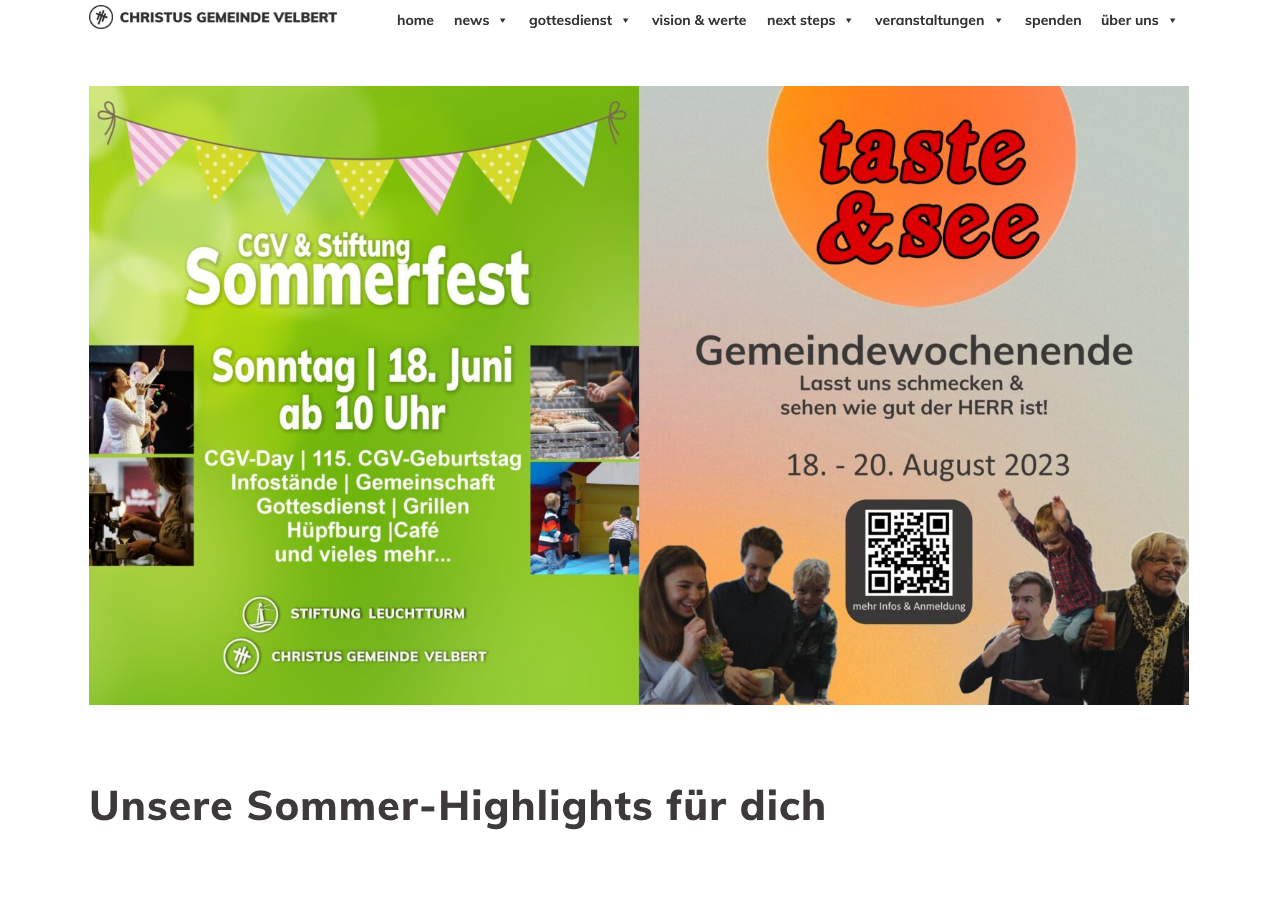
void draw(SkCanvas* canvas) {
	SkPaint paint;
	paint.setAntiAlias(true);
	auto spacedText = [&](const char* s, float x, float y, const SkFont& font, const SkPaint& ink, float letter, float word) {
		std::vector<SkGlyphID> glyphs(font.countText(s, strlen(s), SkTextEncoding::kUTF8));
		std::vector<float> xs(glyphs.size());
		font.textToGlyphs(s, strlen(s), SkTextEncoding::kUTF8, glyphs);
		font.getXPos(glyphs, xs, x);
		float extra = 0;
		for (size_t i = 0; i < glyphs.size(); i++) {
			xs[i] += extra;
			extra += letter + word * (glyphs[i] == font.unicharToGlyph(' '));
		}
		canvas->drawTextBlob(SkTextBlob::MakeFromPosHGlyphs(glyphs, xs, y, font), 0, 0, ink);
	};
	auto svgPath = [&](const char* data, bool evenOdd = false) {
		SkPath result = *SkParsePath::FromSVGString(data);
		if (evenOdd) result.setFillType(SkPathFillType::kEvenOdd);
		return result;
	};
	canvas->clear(0xffffffff);
	canvas->drawImageRect(SkImages::DeferredFromEncodedData(SkData::MakeFromFileName("img1.png")), SkRect::MakeXYWH(89, 5, 248, 24), SkSamplingOptions());
	SkFont f1(fontMgr->matchFamilyStyle("Muli", SkFontStyle::Bold()), 14);
	f1.setSubpixel(true);
	paint.setColor(0xff333333);
	canvas->drawString("home", 397, 25, f1, paint);
	canvas->drawString("news", 454, 25, f1, paint);
	canvas->drawPath(svgPath("M505.5 18.5L502.5 23L500 18.5Z"), paint);
	canvas->drawString("gottesdienst", 529, 25, f1, paint);
	canvas->drawPath(svgPath("M628.5 18.5L625.5 23L623 18.5Z"), paint);
	canvas->drawString("vision & werte", 652, 25, f1, paint);
	canvas->drawString("next steps", 767, 25, f1, paint);
	canvas->drawPath(svgPath("M851.5 18.5L848.5 23L846 18.5Z"), paint);
	canvas->drawString("veranstaltungen", 875, 25, f1, paint);
	canvas->drawPath(svgPath("M1001.5 18.5L998.5 23L996 18.5Z"), paint);
	canvas->drawString("spenden", 1025, 25, f1, paint);
	canvas->drawString("über uns", 1101, 25, f1, paint);
	canvas->drawPath(svgPath("M1175.5 18.5L1172.5 23L1170 18.5Z"), paint);
	canvas->drawImageRect(SkImages::DeferredFromEncodedData(SkData::MakeFromFileName("img2.png")), SkRect::MakeXYWH(89, 86, 1100, 619), SkSamplingOptions());
	SkFont f2(fontMgr->matchFamilyStyle("Muli", SkFontStyle(800, SkFontStyle::kNormal_Width, SkFontStyle::kUpright_Slant)), 41);
	f2.setSubpixel(true);
	paint.setColor(0xff3e3a3b);
	spacedText("Unsere Sommer-Highlights für dich", 89, 820, f2, paint, 1.1, 0);
}
